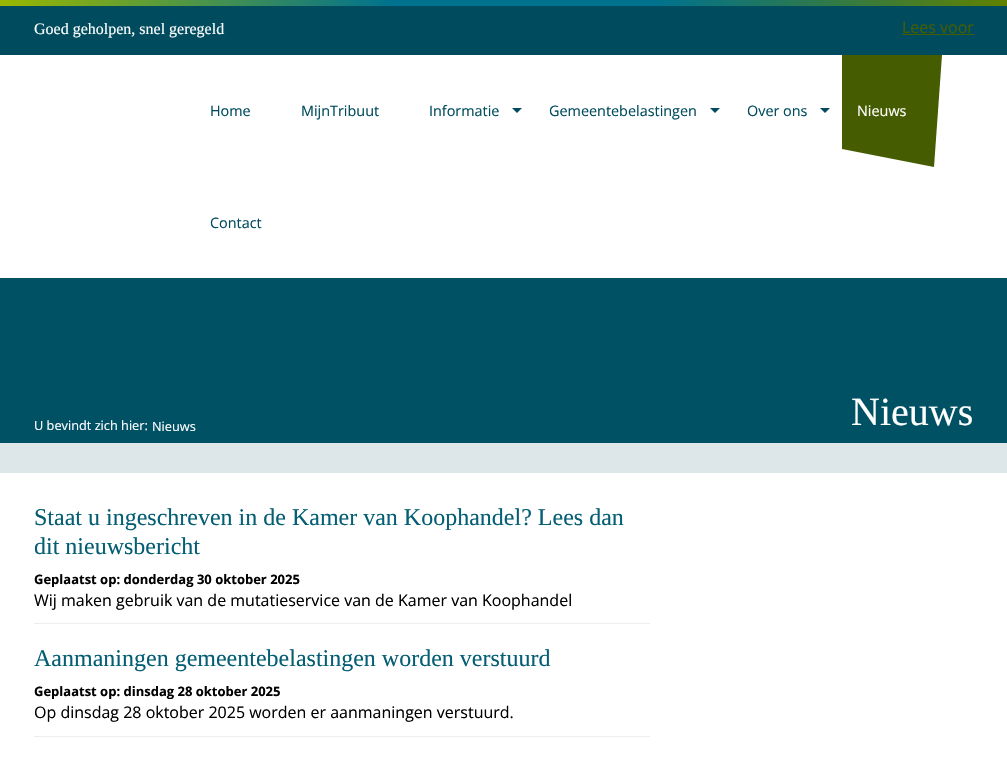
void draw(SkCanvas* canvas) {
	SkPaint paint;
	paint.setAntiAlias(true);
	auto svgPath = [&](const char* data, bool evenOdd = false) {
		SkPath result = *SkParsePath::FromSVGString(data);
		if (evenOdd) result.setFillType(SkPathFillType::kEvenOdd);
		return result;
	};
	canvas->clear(0xffffffff);
	paint.setColor(0xff004c5e);
	canvas->drawRect(SkRect::MakeXYWH(0, 6, 1007, 49), paint);
	{
		const SkColor colors[] = {0xff9ab700, 0xff00728f, 0xff00728f, 0xff618100};
		const float stops[] = {0, 0.39, 0.65, 1};
		const SkPoint ends[] = {{0, 3}, {1007, 3}};
		paint.setShader(SkGradientShader::MakeLinear(ends, colors, stops, 4, SkTileMode::kClamp));
		paint.setAlpha(255);
	}
	canvas->drawRect(SkRect::MakeXYWH(0, 0, 1007, 6), paint);
	SkFont f1(fontMgr->matchFamilyStyle("Liberation Serif", SkFontStyle::Normal()), 16);
	f1.setSubpixel(true);
	paint.setShader(nullptr);
	paint.setColor(0xffffffff);
	canvas->drawString("Goed geholpen, snel geregeld", 34, 34, f1, paint);
	SkFont f2(fontMgr->matchFamilyStyle("Open Sans", SkFontStyle::Normal()), 16);
	f2.setSubpixel(true);
	paint.setColor(0xff455d00);
	canvas->drawString("Lees voor", 902, 33, f2, paint);
	canvas->drawRect(SkRect::MakeXYWH(902, 34, 72, 1), paint);
	SkFont f3(fontMgr->matchFamilyStyle("Open Sans", SkFontStyle::Normal()), 14.4);
	f3.setSubpixel(true);
	paint.setColor(0xff004c5e);
	canvas->drawString("Home", 210, 116, f3, paint);
	canvas->drawString("MijnTribuut", 301, 116, f3, paint);
	canvas->drawString("Informatie", 429, 116, f3, paint);
	canvas->drawPath(svgPath("M512 108H522L517 113Z"), paint);
	canvas->drawString("Gemeentebelastingen", 549, 116, f3, paint);
	canvas->drawPath(svgPath("M710 108H720L715 113Z"), paint);
	canvas->drawString("Over ons", 747, 116, f3, paint);
	canvas->drawPath(svgPath("M820 108H830L825 113Z"), paint);
	paint.setColor(0xff455d00);
	canvas->drawPath(svgPath("M842 55V149L934 167L942 55Z"), paint);
	paint.setColor(0xffffffff);
	canvas->drawString("Nieuws", 857, 116, f3, paint);
	paint.setColor(0xff004c5e);
	canvas->drawString("Contact", 210, 228, f3, paint);
	paint.setColor(0xffdde6e8);
	canvas->drawRect(SkRect::MakeXYWH(0, 443, 1007, 30), paint);
	paint.setColor(0xff015165);
	canvas->drawRect(SkRect::MakeXYWH(0, 278, 1007, 165), paint);
	SkFont f4(fontMgr->matchFamilyStyle("Open Sans", SkFontStyle::Normal()), 12.75);
	f4.setSubpixel(true);
	paint.setColor(0xffffffff);
	canvas->drawString("U bevindt zich hier:", 34, 430, f4, paint);
	canvas->drawString("Nieuws", 152, 431, f4, paint);
	SkFont f5(fontMgr->matchFamilyStyle("Liberation Serif", SkFontStyle::Normal()), 40);
	f5.setSubpixel(true);
	canvas->drawString("Nieuws", 851, 425, f5, paint);
	paint.setColor(0xffeeeeee);
	canvas->drawRect(SkRect::MakeXYWH(34, 623, 616, 1), paint);
	SkFont f6(fontMgr->matchFamilyStyle("Liberation Serif", SkFontStyle::Normal()), 24);
	f6.setSubpixel(true);
	paint.setColor(0xff045e74);
	canvas->drawString("Staat u ingeschreven in de Kamer van Koophandel? Lees dan", 34, 525, f6, paint);
	canvas->drawString("dit nieuwsbericht", 34, 554, f6, paint);
	SkFont f7(fontMgr->matchFamilyStyle("Open Sans", SkFontStyle::Bold()), 13);
	f7.setSubpixel(true);
	paint.setColor(0xff000000);
	canvas->drawString("Geplaatst op: donderdag 30 oktober 2025", 34, 584, f7, paint);
	canvas->drawString("Wij maken gebruik van de mutatieservice van de Kamer van Koophandel", 34, 606, f2, paint);
	paint.setColor(0xffeeeeee);
	canvas->drawRect(SkRect::MakeXYWH(34, 736, 616, 1), paint);
	paint.setColor(0xff045e74);
	canvas->drawString("Aanmaningen gemeentebelastingen worden verstuurd", 34, 666, f6, paint);
	paint.setColor(0xff000000);
	canvas->drawString("Geplaatst op: dinsdag 28 oktober 2025", 34, 696, f7, paint);
	canvas->drawString("Op dinsdag 28 oktober 2025 worden er aanmaningen verstuurd.", 34, 718, f2, paint);
}
